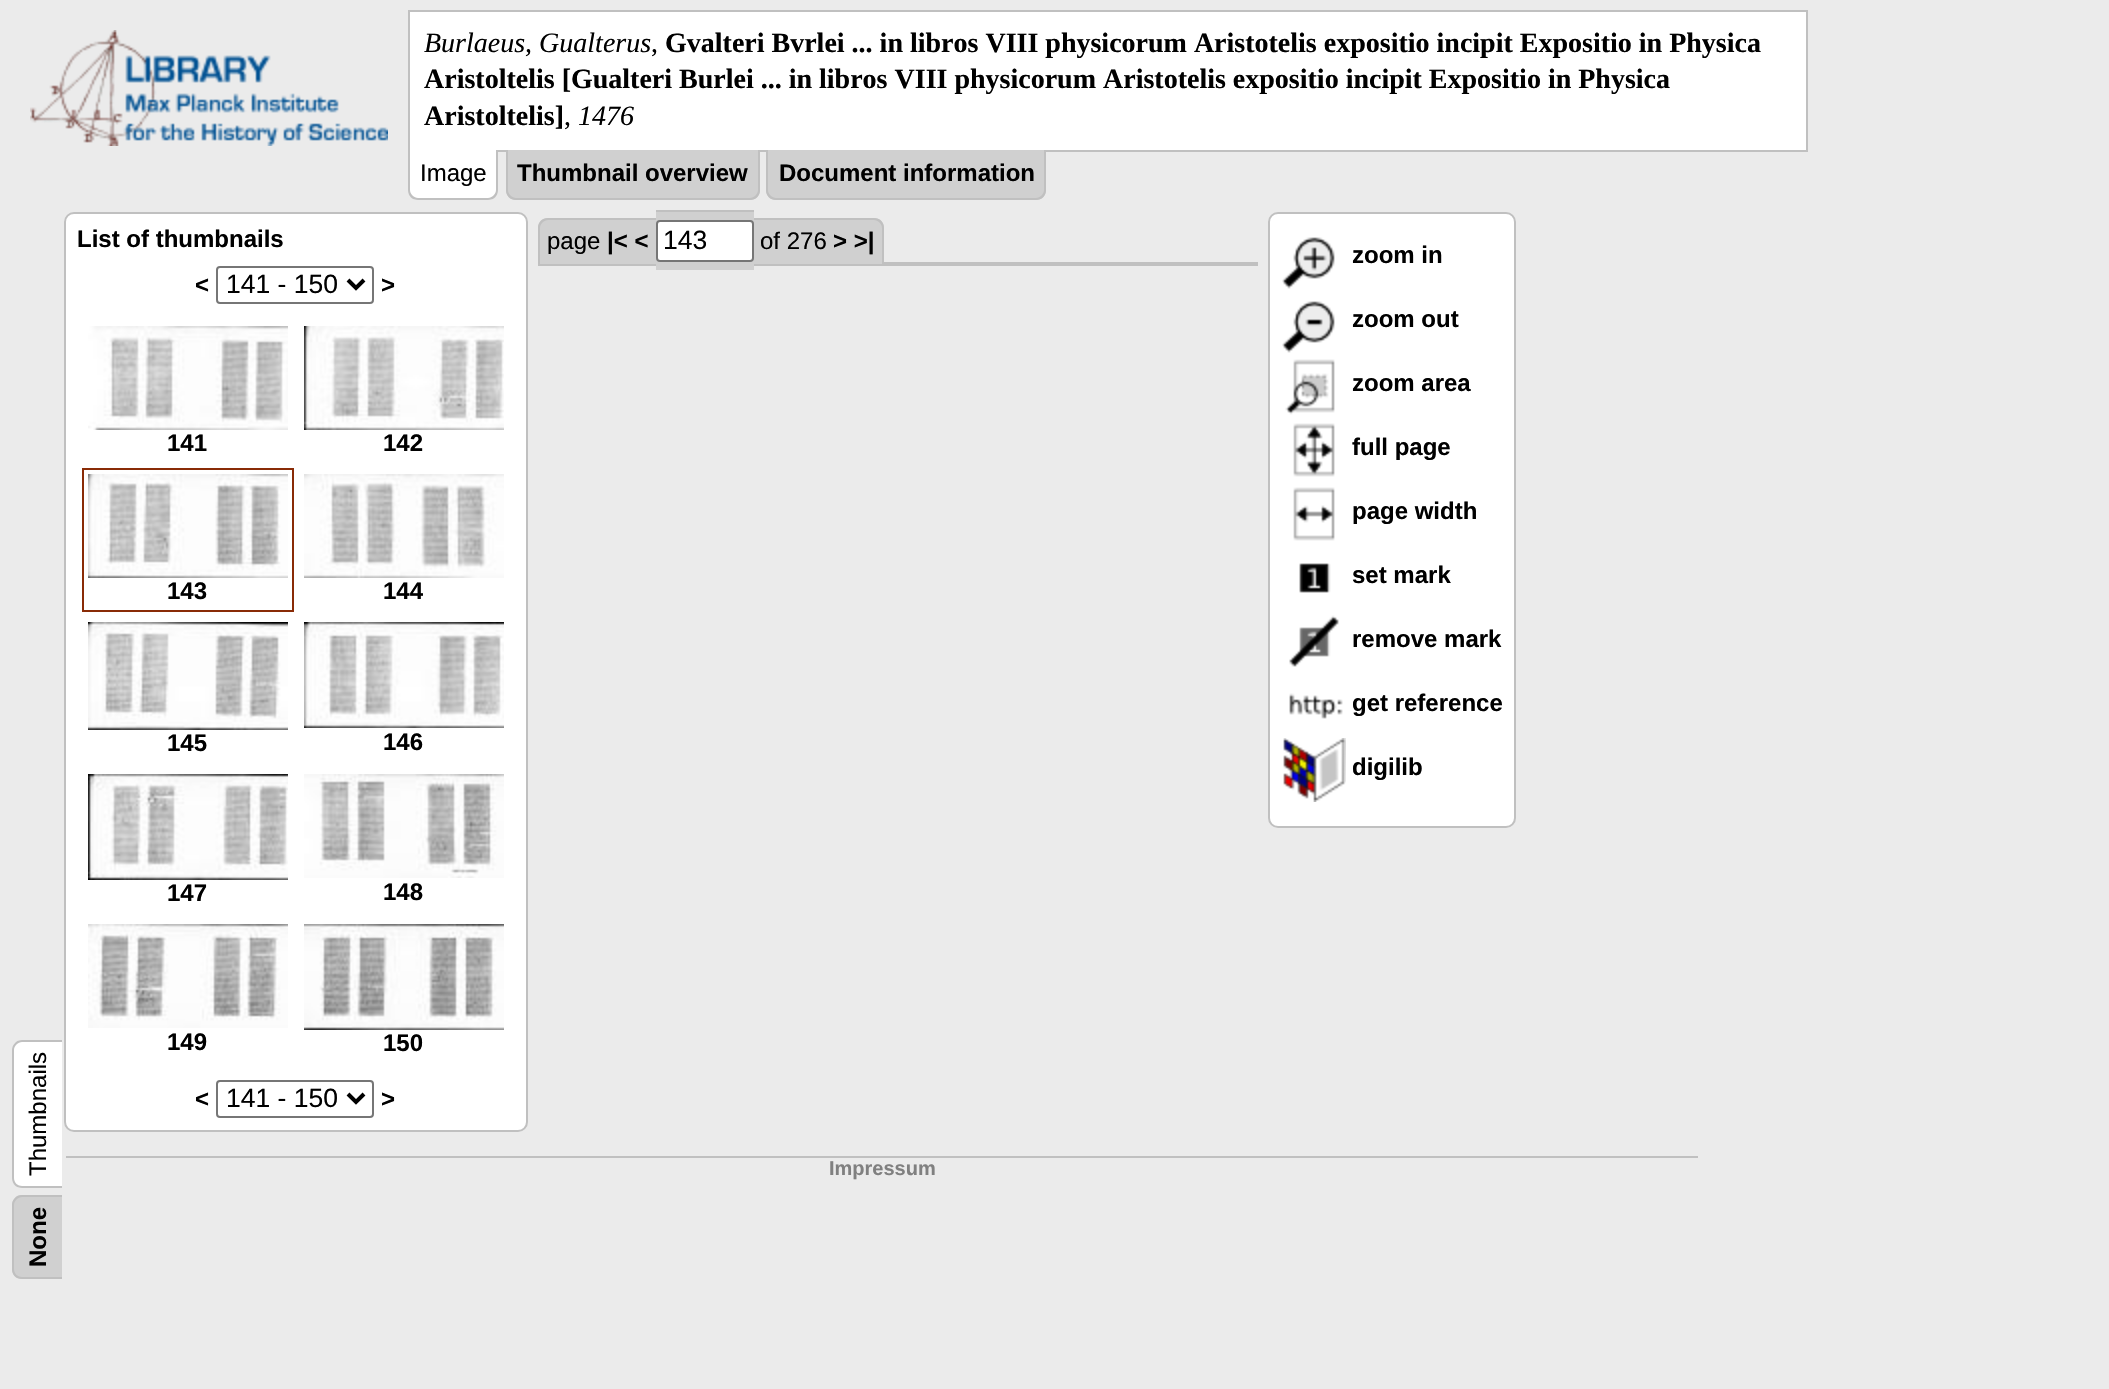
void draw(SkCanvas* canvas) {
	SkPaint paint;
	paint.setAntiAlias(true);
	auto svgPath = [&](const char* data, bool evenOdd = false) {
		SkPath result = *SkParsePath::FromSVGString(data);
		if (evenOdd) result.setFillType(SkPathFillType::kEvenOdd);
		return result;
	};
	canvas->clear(0xffebebeb);
	canvas->drawImageRect(SkImages::DeferredFromEncodedData(SkData::MakeFromFileName("img1.png")), SkRect::MakeXYWH(30, 30, 358, 116), SkSamplingOptions());
	paint.setColor(0xffffffff);
	canvas->drawRect(SkRect::MakeXYWH(409, 11, 1398, 140), paint);
	paint.setStroke(true);
	paint.setStrokeWidth(2);
	paint.setColor(0xffc0c0c0);
	canvas->drawRect(SkRect::MakeXYWH(409, 11, 1398, 140), paint);
	SkFont f1(fontMgr->matchFamilyStyle("Liberation Serif", SkFontStyle::Italic()), 28);
	f1.setSubpixel(true);
	paint.setStroke(false);
	paint.setColor(0xff000000);
	canvas->drawString("Burlaeus, Gualterus", 424, 52, f1, paint);
	SkFont f2(fontMgr->matchFamilyStyle("Liberation Serif", SkFontStyle::Normal()), 28);
	f2.setSubpixel(true);
	canvas->drawString(",", 651, 52, f2, paint);
	SkFont f3(fontMgr->matchFamilyStyle("Liberation Serif", SkFontStyle::Bold()), 28);
	f3.setSubpixel(true);
	canvas->drawString("Gvalteri Bvrlei ... in libros VIII physicorum Aristotelis expositio incipit Expositio in Physica", 665, 52, f3, paint);
	canvas->drawString("Aristoltelis [Gualteri Burlei ... in libros VIII physicorum Aristotelis expositio incipit Expositio in Physica", 424, 88, f3, paint);
	canvas->drawString("Aristoltelis]", 424, 125, f3, paint);
	canvas->drawString(",", 564, 125, f2, paint);
	canvas->drawString("1476", 578, 125, f1, paint);
	paint.setColor(0xffffffff);
	canvas->drawPath(svgPath("M408 150H498V190C498 195.5 493.5 200 488 200H418C412.5 200 408 195.5 408 190Z"), paint);
	paint.setColor(0xffc0c0c0);
	canvas->drawPath(svgPath("M408 150H498V190C498 196 494 200 488 200H418C412 200 408 196 408 190ZM410 150H496V190C496 194 492 198 488 198H418C414 198 410 194 410 190Z", true), paint);
	SkFont f4(fontMgr->matchFamilyStyle("Liberation Sans", SkFontStyle::Normal()), 24);
	f4.setSubpixel(true);
	paint.setColor(0xff000000);
	canvas->drawString("Image", 420, 181, f4, paint);
	paint.setColor(0xffd0d0d0);
	canvas->drawPath(svgPath("M506 150H760V190C760 195.5 755.5 200 750 200H516C510.5 200 506 195.5 506 190Z"), paint);
	paint.setColor(0xffc0c0c0);
	canvas->drawPath(svgPath("M506 150H760V190C760 196 756 200 750 200H516C510 200 506 196 506 190ZM508 150H758V190C758 194 754 198 750 198H516C512 198 508 194 508 190Z", true), paint);
	SkFont f5(fontMgr->matchFamilyStyle("Liberation Sans", SkFontStyle::Bold()), 24);
	f5.setSubpixel(true);
	paint.setColor(0xff000000);
	canvas->drawString("Thumbnail overview", 517, 181, f5, paint);
	paint.setColor(0xffd0d0d0);
	canvas->drawPath(svgPath("M766 150H1046V190C1046 195.5 1041.5 200 1036 200H776C770.5 200 766 195.5 766 190Z"), paint);
	paint.setColor(0xffc0c0c0);
	canvas->drawPath(svgPath("M766 150H1046V190C1046 196 1042 200 1036 200H776C770 200 766 196 766 190ZM768 150H1044V190C1044 194 1040 198 1036 198H776C772 198 768 194 768 190Z", true), paint);
	paint.setColor(0xff000000);
	canvas->drawString("Document information", 779, 181, f5, paint);
	paint.setColor(0xffffffff);
	canvas->drawRoundRect(SkRect::MakeXYWH(65, 213, 462, 918), 9, 9, paint);
	paint.setStroke(true);
	paint.setColor(0xffc0c0c0);
	canvas->drawRoundRect(SkRect::MakeXYWH(65, 213, 462, 918), 9, 9, paint);
	paint.setStroke(false);
	paint.setColor(0xff000000);
	canvas->drawString("List of thumbnails", 77, 247, f5, paint);
	canvas->drawString("<", 195, 293, f5, paint);
	paint.setStroke(true);
	paint.setColor(0xff767676);
	canvas->drawRoundRect(SkRect::MakeXYWH(217, 267, 156, 36), 3, 3, paint);
	paint.setStrokeWidth(4);
	paint.setColor(0xff000000);
	canvas->drawPath(svgPath("M348 280L356 288L364 280"), paint);
	SkFont f6(fontMgr->matchFamilyStyle("Liberation Sans", SkFontStyle::Normal()), 26.5);
	f6.setSubpixel(true);
	paint.setStroke(false);
	canvas->drawString("141 - 150", 226, 293, f6, paint);
	canvas->drawString(">", 381, 293, f5, paint);
	canvas->drawImageRect(SkImages::DeferredFromEncodedData(SkData::MakeFromFileName("img2.png")), SkRect::MakeXYWH(88, 326, 200, 104), SkSamplingOptions());
	canvas->drawString("141", 167, 451, f5, paint);
	canvas->drawImageRect(SkImages::DeferredFromEncodedData(SkData::MakeFromFileName("img3.png")), SkRect::MakeXYWH(304, 326, 200, 104), SkSamplingOptions());
	canvas->drawString("142", 383, 451, f5, paint);
	paint.setStroke(true);
	paint.setStrokeWidth(2);
	paint.setColor(0xff892b06);
	canvas->drawRect(SkRect::MakeXYWH(83, 469, 210, 142), paint);
	canvas->drawImageRect(SkImages::DeferredFromEncodedData(SkData::MakeFromFileName("img4.png")), SkRect::MakeXYWH(88, 474, 200, 104), SkSamplingOptions());
	paint.setStroke(false);
	paint.setColor(0xff000000);
	canvas->drawString("143", 167, 599, f5, paint);
	canvas->drawImageRect(SkImages::DeferredFromEncodedData(SkData::MakeFromFileName("img5.png")), SkRect::MakeXYWH(304, 474, 200, 104), SkSamplingOptions());
	canvas->drawString("144", 383, 599, f5, paint);
	canvas->drawImageRect(SkImages::DeferredFromEncodedData(SkData::MakeFromFileName("img6.png")), SkRect::MakeXYWH(88, 622, 200, 108), SkSamplingOptions());
	canvas->drawString("145", 167, 751, f5, paint);
	canvas->drawImageRect(SkImages::DeferredFromEncodedData(SkData::MakeFromFileName("img7.png")), SkRect::MakeXYWH(304, 622, 200, 106), SkSamplingOptions());
	canvas->drawString("146", 383, 750, f5, paint);
	canvas->drawImageRect(SkImages::DeferredFromEncodedData(SkData::MakeFromFileName("img8.png")), SkRect::MakeXYWH(88, 774, 200, 106), SkSamplingOptions());
	canvas->drawString("147", 167, 901, f5, paint);
	canvas->drawImageRect(SkImages::DeferredFromEncodedData(SkData::MakeFromFileName("img9.png")), SkRect::MakeXYWH(304, 774, 200, 104), SkSamplingOptions());
	canvas->drawString("148", 383, 900, f5, paint);
	canvas->drawImageRect(SkImages::DeferredFromEncodedData(SkData::MakeFromFileName("img10.png")), SkRect::MakeXYWH(88, 924, 200, 104), SkSamplingOptions());
	canvas->drawString("149", 167, 1050, f5, paint);
	canvas->drawImageRect(SkImages::DeferredFromEncodedData(SkData::MakeFromFileName("img11.png")), SkRect::MakeXYWH(304, 924, 200, 106), SkSamplingOptions());
	canvas->drawString("150", 383, 1051, f5, paint);
	canvas->drawString("<", 195, 1107, f5, paint);
	paint.setStroke(true);
	paint.setColor(0xff767676);
	canvas->drawRoundRect(SkRect::MakeXYWH(217, 1081, 156, 36), 3, 3, paint);
	paint.setStrokeWidth(4);
	paint.setColor(0xff000000);
	canvas->drawPath(svgPath("M348 1094L356 1102L364 1094"), paint);
	paint.setStroke(false);
	canvas->drawString("141 - 150", 226, 1107, f6, paint);
	canvas->drawString(">", 381, 1107, f5, paint);
	paint.setColor(0xffffffff);
	canvas->drawPath(svgPath("M12 1178V1050C12 1045 16 1040 22 1040H62V1188H22C16 1188 12 1184 12 1178Z"), paint);
	paint.setColor(0xffc0c0c0);
	canvas->drawPath(svgPath("M12 1178V1050C12 1045 16 1040 22 1040H62V1188H22C16 1188 12 1184 12 1178ZM14 1178V1050C14 1046 18 1042 22 1042H62V1186H22C18 1186 14 1183 14 1178Z", true), paint);
	paint.setColor(0xff000000);
	canvas->save();
	canvas->rotate(-90, 46, 1176);
	canvas->drawString("Thumbnails", 46, 1176, f4, paint);
	canvas->restore();
	paint.setColor(0xffd0d0d0);
	canvas->drawPath(svgPath("M12 1269V1205C12 1200 16 1195 22 1195H62V1279H22C16 1279 12 1275 12 1269Z"), paint);
	paint.setColor(0xffc0c0c0);
	canvas->drawPath(svgPath("M12 1269V1205C12 1200 16 1195 22 1195H62V1279H22C16 1279 12 1275 12 1269ZM14 1269V1205C14 1201 18 1197 22 1197H62V1277H22C18 1277 14 1274 14 1269Z", true), paint);
	paint.setColor(0xff000000);
	canvas->save();
	canvas->rotate(-90, 46, 1267);
	canvas->drawString("None", 46, 1267, f5, paint);
	canvas->restore();
	paint.setColor(0xffc0c0c0);
	canvas->drawRect(SkRect::MakeXYWH(538, 262, 720, 4), paint);
	paint.setColor(0xffd0d0d0);
	canvas->drawPath(svgPath("M548 218H608V264H538V228C538 222.5 542.5 218 548 218Z"), paint);
	paint.setColor(0xffc0c0c0);
	canvas->drawPath(svgPath("M548 218H608V264H538V228C538 222 542 218 548 218ZM548 220H608V264H540V228C540 224 544 220 548 220Z", true), paint);
	paint.setColor(0xffd0d0d0);
	canvas->drawRect(SkRect::MakeXYWH(608, 220, 20, 44), paint);
	paint.setColor(0xffc0c0c0);
	canvas->drawRect(SkRect::MakeXYWH(608, 218, 20, 2), paint);
	paint.setColor(0xffd0d0d0);
	canvas->drawRect(SkRect::MakeXYWH(628, 218, 6, 46), paint);
	paint.setColor(0xffc0c0c0);
	canvas->drawRect(SkRect::MakeXYWH(628, 218, 20, 2), paint);
	paint.setColor(0xffd0d0d0);
	canvas->drawRect(SkRect::MakeXYWH(634, 220, 14, 44), paint);
	canvas->drawRect(SkRect::MakeXYWH(648, 218, 8, 46), paint);
	paint.setColor(0xffc0c0c0);
	canvas->drawRect(SkRect::MakeXYWH(648, 218, 8, 2), paint);
	paint.setColor(0xffd0d0d0);
	canvas->drawRect(SkRect::MakeXYWH(656, 212, 98, 58), paint);
	paint.setColor(0xffc0c0c0);
	canvas->drawRect(SkRect::MakeXYWH(656, 210, 98, 2), paint);
	paint.setColor(0xffd0d0d0);
	canvas->drawRect(SkRect::MakeXYWH(754, 218, 6, 46), paint);
	paint.setColor(0xffc0c0c0);
	canvas->drawRect(SkRect::MakeXYWH(754, 218, 94, 2), paint);
	paint.setColor(0xffd0d0d0);
	canvas->drawRect(SkRect::MakeXYWH(760, 220, 88, 44), paint);
	canvas->drawRect(SkRect::MakeXYWH(848, 218, 6, 46), paint);
	paint.setColor(0xffc0c0c0);
	canvas->drawRect(SkRect::MakeXYWH(848, 218, 6, 2), paint);
	paint.setColor(0xffd0d0d0);
	canvas->drawPath(svgPath("M854 218H874C879.5 218 884 222.5 884 228V264H854Z"), paint);
	paint.setColor(0xffc0c0c0);
	canvas->drawPath(svgPath("M854 218H874C880 218 884 222 884 228V264H854ZM854 220H874C878 220 882 224 882 228V264H854Z", true), paint);
	paint.setColor(0xff000000);
	canvas->drawString("page", 547, 249, f4, paint);
	canvas->drawString("|< <", 607, 249, f5, paint);
	paint.setColor(0xffffffff);
	canvas->drawRoundRect(SkRect::MakeXYWH(657, 221, 96, 40), 3, 3, paint);
	paint.setStroke(true);
	paint.setStrokeWidth(2);
	paint.setColor(0xff767676);
	canvas->drawRoundRect(SkRect::MakeXYWH(657, 221, 96, 40), 3, 3, paint);
	paint.setStroke(false);
	paint.setColor(0xff000000);
	canvas->drawString("143", 663, 249, f6, paint);
	canvas->drawString("of 276", 760, 249, f4, paint);
	canvas->drawString("> >|", 833, 249, f5, paint);
	paint.setColor(0xffffffff);
	canvas->drawRoundRect(SkRect::MakeXYWH(1269, 213, 246, 614), 9, 9, paint);
	paint.setStroke(true);
	paint.setColor(0xffc0c0c0);
	canvas->drawRoundRect(SkRect::MakeXYWH(1269, 213, 246, 614), 9, 9, paint);
	canvas->drawImageRect(SkImages::DeferredFromEncodedData(SkData::MakeFromFileName("img12.png")), SkRect::MakeXYWH(1282, 237, 53, 52), SkSamplingOptions());
	paint.setStroke(false);
	paint.setColor(0xff000000);
	canvas->drawString("zoom in", 1352, 263, f5, paint);
	canvas->drawImageRect(SkImages::DeferredFromEncodedData(SkData::MakeFromFileName("img13.png")), SkRect::MakeXYWH(1282, 301, 53, 52), SkSamplingOptions());
	canvas->drawString("zoom out", 1352, 327, f5, paint);
	canvas->drawImageRect(SkImages::DeferredFromEncodedData(SkData::MakeFromFileName("img14.png")), SkRect::MakeXYWH(1285, 359, 50, 56), SkSamplingOptions());
	canvas->drawString("zoom area", 1352, 391, f5, paint);
	canvas->drawImageRect(SkImages::DeferredFromEncodedData(SkData::MakeFromFileName("img15.png")), SkRect::MakeXYWH(1293, 423, 42, 54), SkSamplingOptions());
	canvas->drawString("full page", 1352, 455, f5, paint);
	canvas->drawImageRect(SkImages::DeferredFromEncodedData(SkData::MakeFromFileName("img16.png")), SkRect::MakeXYWH(1293, 487, 42, 54), SkSamplingOptions());
	canvas->drawString("page width", 1352, 519, f5, paint);
	canvas->drawImageRect(SkImages::DeferredFromEncodedData(SkData::MakeFromFileName("img17.png")), SkRect::MakeXYWH(1299, 563, 32, 30), SkSamplingOptions());
	canvas->drawString("set mark", 1352, 583, f5, paint);
	canvas->drawImageRect(SkImages::DeferredFromEncodedData(SkData::MakeFromFileName("img18.png")), SkRect::MakeXYWH(1289, 615, 50, 52), SkSamplingOptions());
	canvas->drawString("remove mark", 1352, 647, f5, paint);
	canvas->drawImageRect(SkImages::DeferredFromEncodedData(SkData::MakeFromFileName("img19.png")), SkRect::MakeXYWH(1289, 693, 54, 26), SkSamplingOptions());
	canvas->drawString("get reference", 1352, 711, f5, paint);
	canvas->drawImageRect(SkImages::DeferredFromEncodedData(SkData::MakeFromFileName("img20.png")), SkRect::MakeXYWH(1283, 738, 63, 64), SkSamplingOptions());
	canvas->drawString("digilib", 1352, 775, f5, paint);
	paint.setColor(0xffc0c0c0);
	canvas->drawRect(SkRect::MakeXYWH(66, 1156, 1632, 2), paint);
	SkFont f7(fontMgr->matchFamilyStyle("Liberation Sans", SkFontStyle::Bold()), 20);
	f7.setSubpixel(true);
	paint.setColor(0xff808080);
	canvas->drawString("Impressum", 829, 1175, f7, paint);
}
